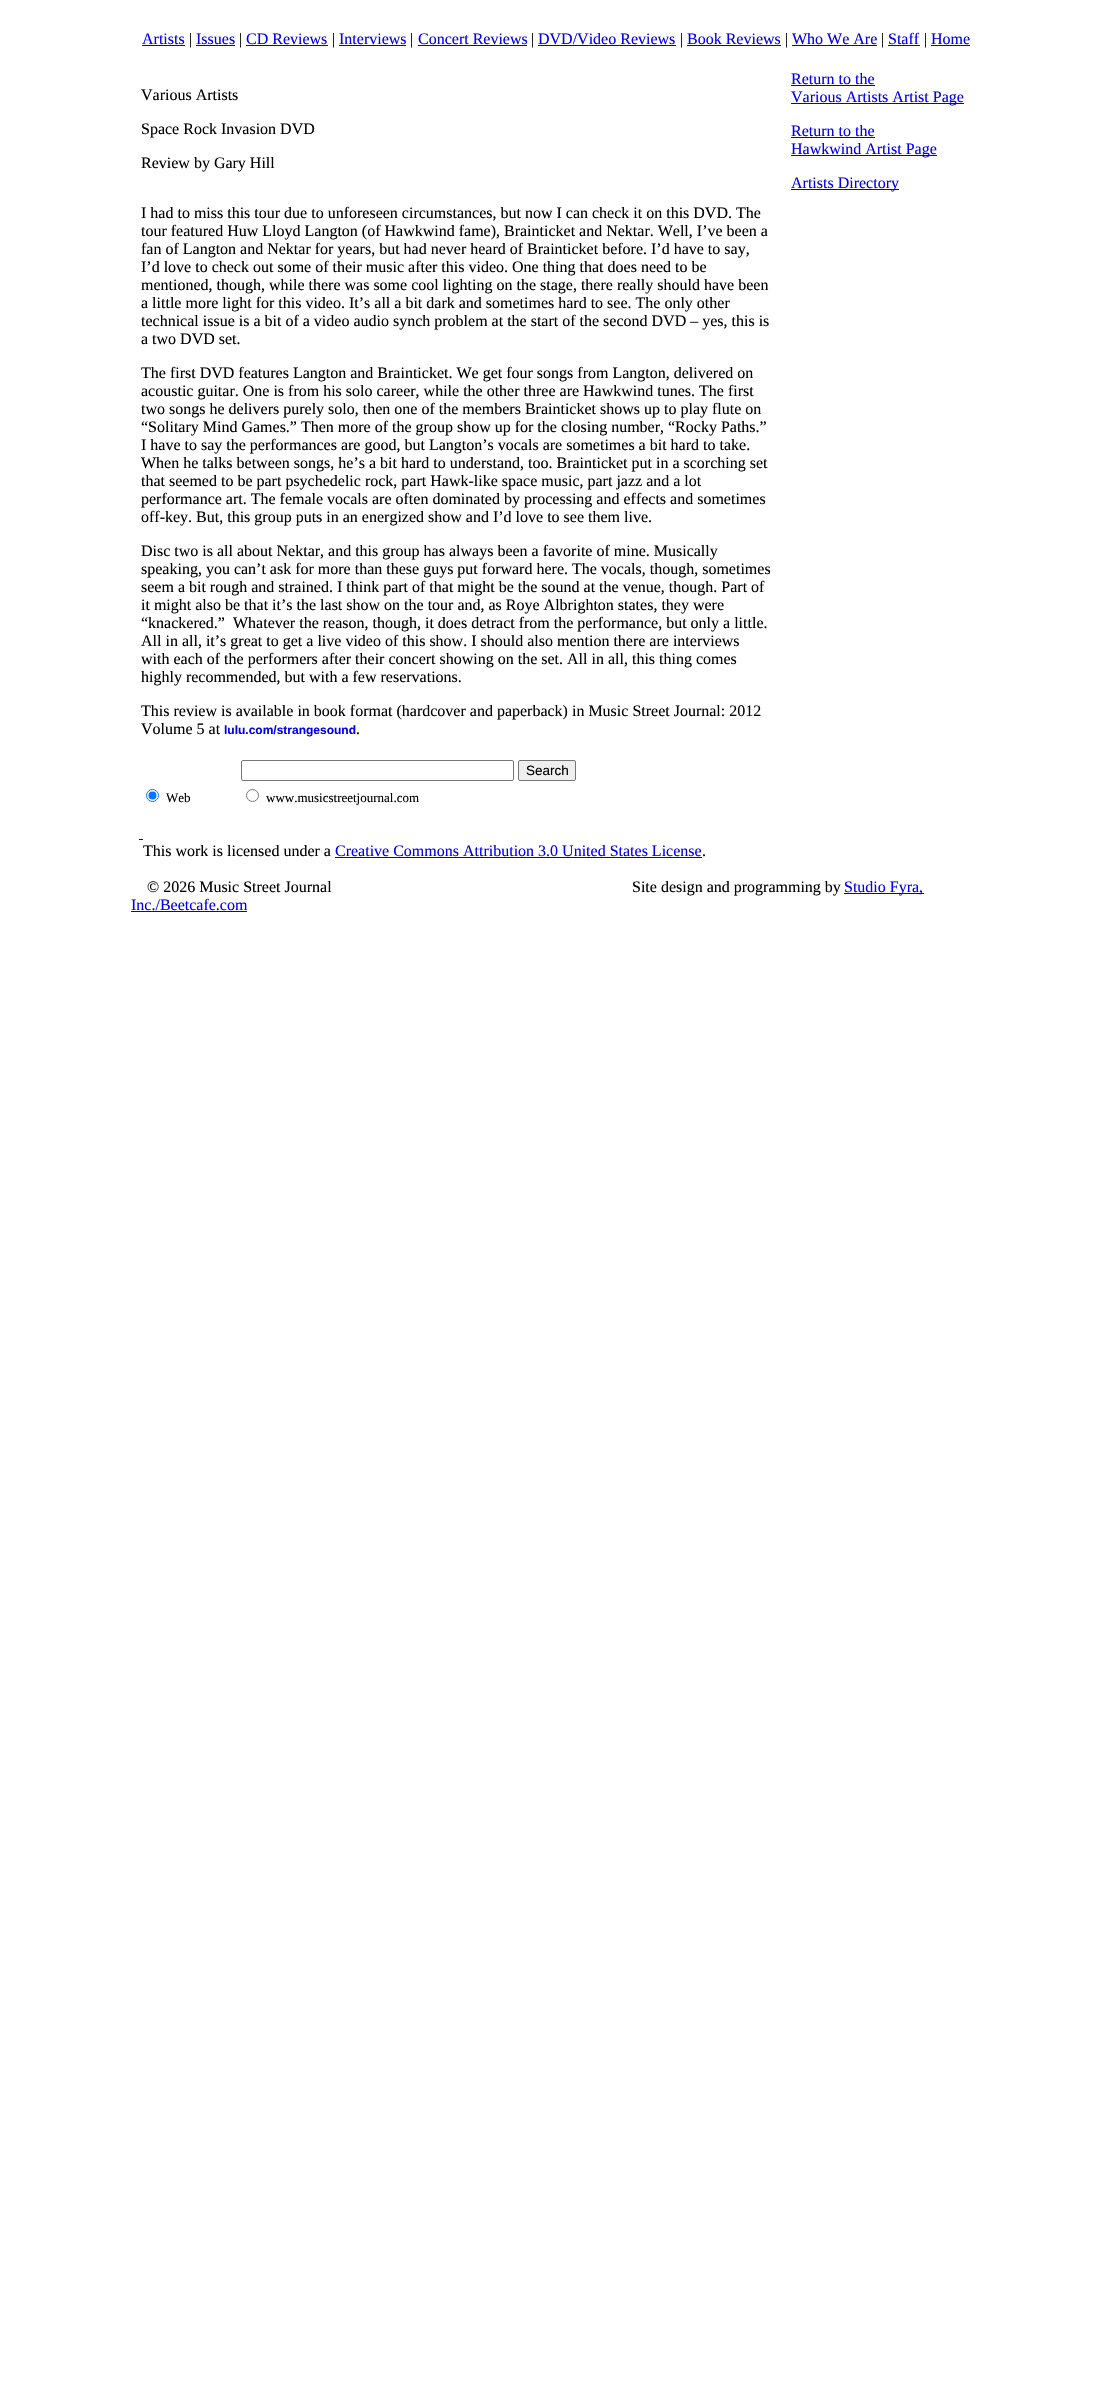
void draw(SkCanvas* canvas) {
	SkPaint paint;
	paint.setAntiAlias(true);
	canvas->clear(0xffffffff);
	SkFont f1(fontMgr->matchFamilyStyle("Liberation Serif", SkFontStyle::Normal()), 16);
	f1.setSubpixel(true);
	paint.setColor(0xff0000ee);
	canvas->drawString("Artists", 142, 44, f1, paint);
	canvas->drawRect(SkRect::MakeXYWH(142, 45, 43, 1), paint);
	paint.setColor(0xff000000);
	canvas->drawString("|", 189, 44, f1, paint);
	paint.setColor(0xff0000ee);
	canvas->drawString("Issues", 196, 44, f1, paint);
	canvas->drawRect(SkRect::MakeXYWH(196, 45, 39, 1), paint);
	paint.setColor(0xff000000);
	canvas->drawString("|", 239, 44, f1, paint);
	paint.setColor(0xff0000ee);
	canvas->drawString("CD Reviews", 246, 44, f1, paint);
	canvas->drawRect(SkRect::MakeXYWH(246, 45, 82, 1), paint);
	paint.setColor(0xff000000);
	canvas->drawString("|", 332, 44, f1, paint);
	paint.setColor(0xff0000ee);
	canvas->drawString("Interviews", 339, 44, f1, paint);
	canvas->drawRect(SkRect::MakeXYWH(339, 45, 67, 1), paint);
	paint.setColor(0xff000000);
	canvas->drawString("|", 410, 44, f1, paint);
	paint.setColor(0xff0000ee);
	canvas->drawString("Concert Reviews", 418, 44, f1, paint);
	canvas->drawRect(SkRect::MakeXYWH(418, 45, 109, 1), paint);
	paint.setColor(0xff000000);
	canvas->drawString("|", 531, 44, f1, paint);
	paint.setColor(0xff0000ee);
	canvas->drawString("DVD/Video Reviews", 538, 44, f1, paint);
	canvas->drawRect(SkRect::MakeXYWH(538, 45, 138, 1), paint);
	paint.setColor(0xff000000);
	canvas->drawString("|", 680, 44, f1, paint);
	paint.setColor(0xff0000ee);
	canvas->drawString("Book Reviews", 687, 44, f1, paint);
	canvas->drawRect(SkRect::MakeXYWH(687, 45, 94, 1), paint);
	paint.setColor(0xff000000);
	canvas->drawString("|", 785, 44, f1, paint);
	paint.setColor(0xff0000ee);
	canvas->drawString("Who We Are", 792, 44, f1, paint);
	canvas->drawRect(SkRect::MakeXYWH(792, 45, 85, 1), paint);
	paint.setColor(0xff000000);
	canvas->drawString("|", 881, 44, f1, paint);
	paint.setColor(0xff0000ee);
	canvas->drawString("Staff", 888, 44, f1, paint);
	canvas->drawRect(SkRect::MakeXYWH(888, 45, 32, 1), paint);
	paint.setColor(0xff000000);
	canvas->drawString("|", 924, 44, f1, paint);
	paint.setColor(0xff0000ee);
	canvas->drawString("Home", 931, 44, f1, paint);
	canvas->drawRect(SkRect::MakeXYWH(931, 45, 39, 1), paint);
	paint.setColor(0xff000000);
	canvas->drawString("Various Artists", 141, 100, f1, paint);
	canvas->drawString("Space Rock Invasion DVD", 141, 134, f1, paint);
	canvas->drawString("Review by Gary Hill", 141, 168, f1, paint);
	canvas->drawString("I had to miss this tour due to unforeseen circumstances, but now I can check it on this DVD. The", 141, 218, f1, paint);
	canvas->drawString("tour featured Huw Lloyd Langton (of Hawkwind fame), Brainticket and Nektar. Well, I’ve been a", 141, 236, f1, paint);
	canvas->drawString("fan of Langton and Nektar for years, but had never heard of Brainticket before. I’d have to say,", 141, 254, f1, paint);
	canvas->drawString("I’d love to check out some of their music after this video. One thing that does need to be", 141, 272, f1, paint);
	canvas->drawString("mentioned, though, while there was some cool lighting on the stage, there really should have been", 141, 290, f1, paint);
	canvas->drawString("a little more light for this video. It’s all a bit dark and sometimes hard to see. The only other", 141, 308, f1, paint);
	canvas->drawString("technical issue is a bit of a video audio synch problem at the start of the second DVD – yes, this is", 141, 326, f1, paint);
	canvas->drawString("a two DVD set.", 141, 344, f1, paint);
	canvas->drawString("The first DVD features Langton and Brainticket. We get four songs from Langton, delivered on", 141, 378, f1, paint);
	canvas->drawString("acoustic guitar. One is from his solo career, while the other three are Hawkwind tunes. The first", 141, 396, f1, paint);
	canvas->drawString("two songs he delivers purely solo, then one of the members Brainticket shows up to play flute on", 141, 414, f1, paint);
	canvas->drawString("“Solitary Mind Games.” Then more of the group show up for the closing number, “Rocky Paths.”", 141, 432, f1, paint);
	canvas->drawString("I have to say the performances are good, but Langton’s vocals are sometimes a bit hard to take.", 141, 450, f1, paint);
	canvas->drawString("When he talks between songs, he’s a bit hard to understand, too. Brainticket put in a scorching set", 141, 468, f1, paint);
	canvas->drawString("that seemed to be part psychedelic rock, part Hawk-like space music, part jazz and a lot", 141, 486, f1, paint);
	canvas->drawString("performance art. The female vocals are often dominated by processing and effects and sometimes", 141, 504, f1, paint);
	canvas->drawString("off-key. But, this group puts in an energized show and I’d love to see them live.", 141, 522, f1, paint);
	canvas->drawString("Disc two is all about Nektar, and this group has always been a favorite of mine. Musically", 141, 556, f1, paint);
	canvas->drawString("speaking, you can’t ask for more than these guys put forward here. The vocals, though, sometimes", 141, 574, f1, paint);
	canvas->drawString("seem a bit rough and strained. I think part of that might be the sound at the venue, though. Part of", 141, 592, f1, paint);
	canvas->drawString("it might also be that it’s the last show on the tour and, as Roye Albrighton states, they were", 141, 610, f1, paint);
	canvas->drawString("“knackered.”", 141, 628, f1, paint);
	canvas->drawString("Whatever the reason, though, it does detract from the performance, but only a little.", 233, 628, f1, paint);
	canvas->drawString("All in all, it’s great to get a live video of this show. I should also mention there are interviews", 141, 646, f1, paint);
	canvas->drawString("with each of the performers after their concert showing on the set. All in all, this thing comes", 141, 664, f1, paint);
	canvas->drawString("highly recommended, but with a few reservations.", 141, 682, f1, paint);
	canvas->drawString("This review is available in book format (hardcover and paperback) in Music Street Journal: 2012", 141, 716, f1, paint);
	canvas->drawString("Volume 5 at", 141, 734, f1, paint);
	SkFont f2(fontMgr->matchFamilyStyle("Liberation Sans", SkFontStyle::Bold()), 12);
	f2.setSubpixel(true);
	paint.setColor(0xff0000ee);
	canvas->drawString("lulu.com/strangesound", 224, 734, f2, paint);
	paint.setColor(0xff000000);
	canvas->drawString(".", 356, 734, f1, paint);
	paint.setColor(0xff0000ee);
	canvas->drawString("Return to the", 791, 84, f1, paint);
	canvas->drawRect(SkRect::MakeXYWH(791, 85, 84, 1), paint);
	canvas->drawRect(SkRect::MakeXYWH(791, 103, 173, 1), paint);
	canvas->drawString("Various Artists Artist Page", 791, 102, f1, paint);
	canvas->drawString("Return to the", 791, 136, f1, paint);
	canvas->drawRect(SkRect::MakeXYWH(791, 137, 84, 1), paint);
	canvas->drawRect(SkRect::MakeXYWH(791, 155, 146, 1), paint);
	canvas->drawString("Hawkwind Artist Page", 791, 154, f1, paint);
	canvas->drawRect(SkRect::MakeXYWH(791, 189, 108, 1), paint);
	canvas->drawString("Artists Directory", 791, 188, f1, paint);
	paint.setStroke(true);
	paint.setStrokeWidth(1);
	paint.setColor(0xff767676);
	canvas->drawRoundRect(SkRect::MakeXYWH(241.5, 760.5, 272, 20), 1.5, 1.5, paint);
	paint.setStroke(false);
	paint.setColor(0xffefefef);
	canvas->drawRoundRect(SkRect::MakeXYWH(518.5, 760.5, 57, 20), 1.5, 1.5, paint);
	paint.setStroke(true);
	paint.setColor(0xff767676);
	canvas->drawRoundRect(SkRect::MakeXYWH(518.5, 760.5, 57, 20), 1.5, 1.5, paint);
	SkFont f3(fontMgr->matchFamilyStyle("Liberation Sans", SkFontStyle::Normal()), 13.5);
	f3.setSubpixel(true);
	paint.setStroke(false);
	paint.setColor(0xff000000);
	canvas->drawString("Search", 526, 775, f3, paint);
	paint.setStroke(true);
	paint.setColor(0xff0075ff);
	canvas->drawCircle(152.5, 795.5, 6, paint);
	paint.setStroke(false);
	canvas->drawCircle(152.5, 795.5, 4, paint);
	SkFont f4(fontMgr->matchFamilyStyle("Liberation Serif", SkFontStyle::Normal()), 13);
	f4.setSubpixel(true);
	paint.setColor(0xff000000);
	canvas->drawString("Web", 166, 802, f4, paint);
	paint.setStroke(true);
	paint.setColor(0xff767676);
	canvas->drawCircle(252.5, 795.5, 6, paint);
	paint.setStroke(false);
	paint.setColor(0xff000000);
	canvas->drawString("www.musicstreetjournal.com", 266, 802, f4, paint);
	paint.setColor(0xff0000ee);
	canvas->drawRect(SkRect::MakeXYWH(139, 839, 4, 1), paint);
	paint.setColor(0xff000000);
	canvas->drawString("This work is licensed under a", 143, 856, f1, paint);
	paint.setColor(0xff0000ee);
	canvas->drawString("Creative Commons Attribution 3.0 United States License", 335, 856, f1, paint);
	canvas->drawRect(SkRect::MakeXYWH(335, 857, 367, 1), paint);
	paint.setColor(0xff000000);
	canvas->drawString(".", 702, 856, f1, paint);
	canvas->drawString("© 2026 Music Street Journal", 147, 892, f1, paint);
	canvas->drawString("Site design and programming by", 632, 892, f1, paint);
	paint.setColor(0xff0000ee);
	canvas->drawRect(SkRect::MakeXYWH(844, 893, 80, 1), paint);
	canvas->drawString("Studio Fyra,", 844, 892, f1, paint);
	canvas->drawString("Inc./Beetcafe.com", 131, 910, f1, paint);
	canvas->drawRect(SkRect::MakeXYWH(131, 911, 116, 1), paint);
}
